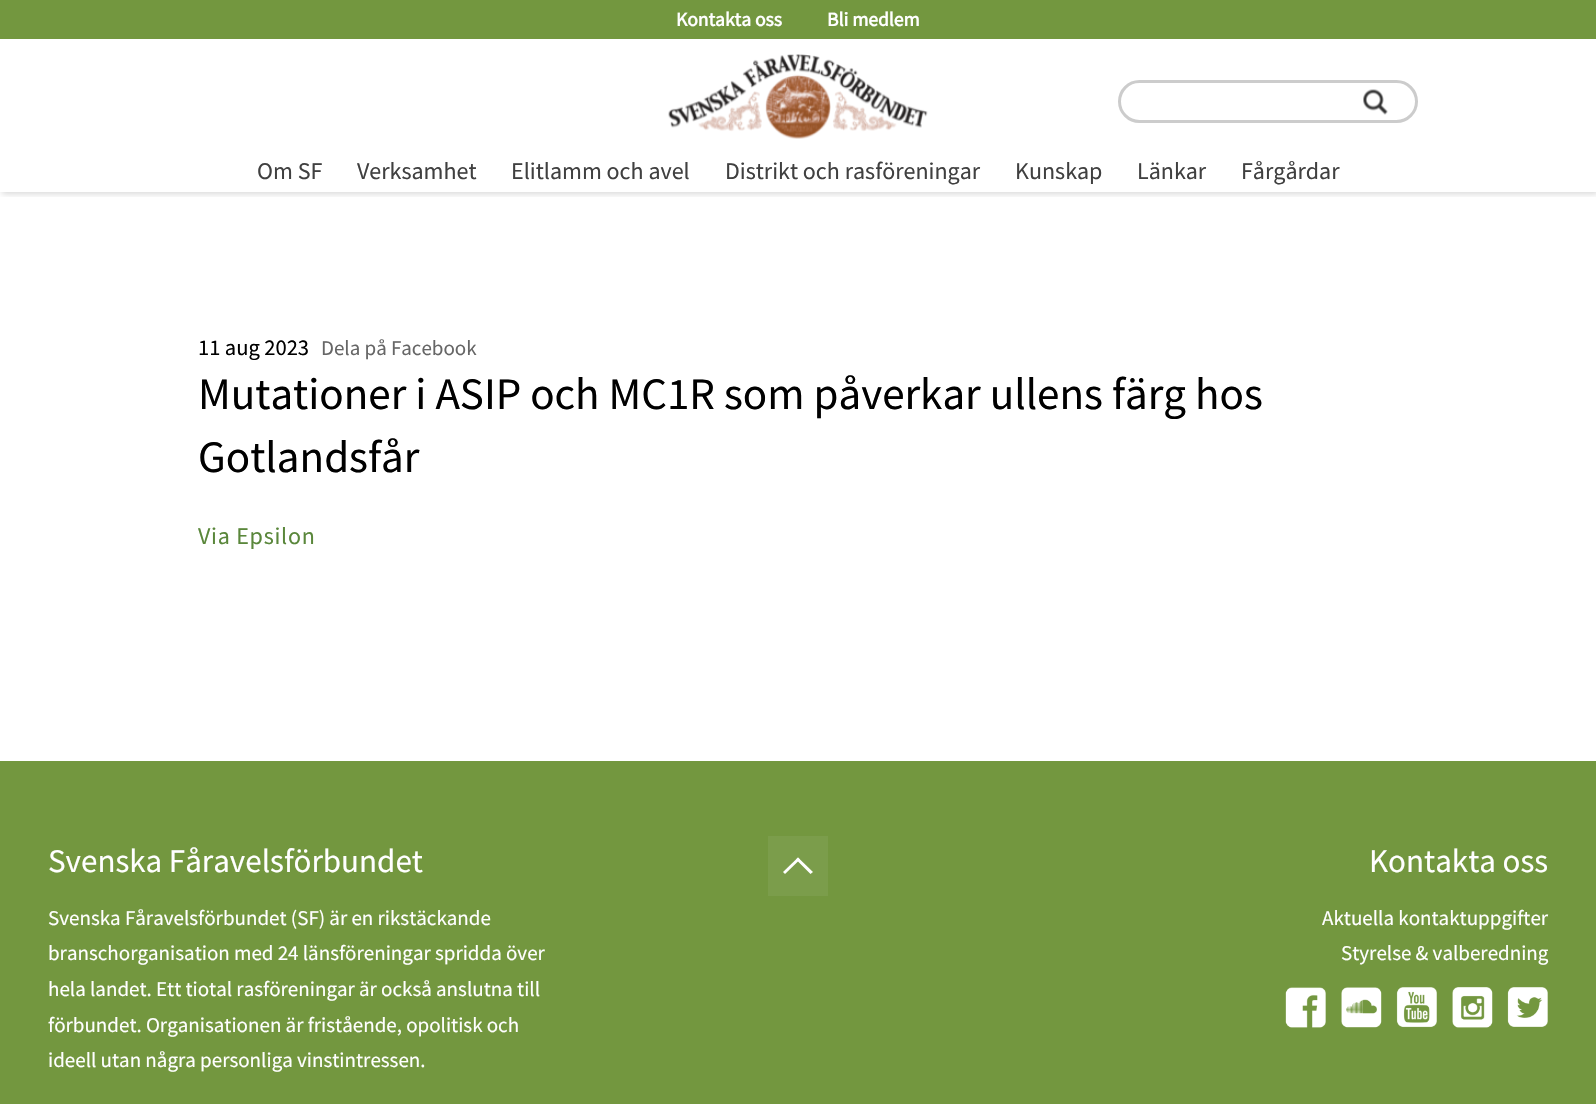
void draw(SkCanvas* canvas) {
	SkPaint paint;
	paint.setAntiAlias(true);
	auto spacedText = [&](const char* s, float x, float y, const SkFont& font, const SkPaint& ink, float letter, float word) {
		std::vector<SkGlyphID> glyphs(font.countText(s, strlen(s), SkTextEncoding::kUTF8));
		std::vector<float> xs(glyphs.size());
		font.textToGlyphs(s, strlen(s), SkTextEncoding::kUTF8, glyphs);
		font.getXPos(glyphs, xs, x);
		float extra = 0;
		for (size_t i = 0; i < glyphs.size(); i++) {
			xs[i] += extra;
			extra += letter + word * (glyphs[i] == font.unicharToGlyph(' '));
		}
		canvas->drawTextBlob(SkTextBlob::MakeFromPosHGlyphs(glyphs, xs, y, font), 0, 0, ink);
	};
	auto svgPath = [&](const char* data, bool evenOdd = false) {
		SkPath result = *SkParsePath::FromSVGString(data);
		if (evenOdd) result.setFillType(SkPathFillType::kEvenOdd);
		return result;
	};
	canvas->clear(0xffffffff);
	canvas->save();
	canvas->clipRect(SkRect::MakeXYWH(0, 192, 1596, 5));
	paint.setColor(0x26000000);
	paint.setMaskFilter(SkMaskFilter::MakeBlur(kNormal_SkBlurStyle, 3));
	canvas->drawRect(SkRect::MakeXYWH(2, 147, 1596, 47), paint);
	paint.setMaskFilter(nullptr);
	canvas->restore();
	paint.setColor(0xffffffff);
	canvas->drawRect(SkRect::MakeXYWH(1, 143, 1595, 3), paint);
	paint.setColor(0xff73973f);
	canvas->drawRect(SkRect::MakeXYWH(0, 0, 1596, 39), paint);
	SkFont f1(fontMgr->matchFamilyStyle("Source Sans Pro", SkFontStyle::Bold()), 19.5);
	f1.setSubpixel(true);
	paint.setColor(0xffffffff);
	canvas->drawString("Kontakta oss", 676, 26, f1, paint);
	canvas->drawString("Bli medlem", 827, 26, f1, paint);
	canvas->drawImageRect(SkImages::DeferredFromEncodedData(SkData::MakeFromFileName("img1.png")), SkRect::MakeXYWH(668, 54, 260, 85), SkSamplingOptions());
	canvas->drawImageRect(SkImages::DeferredFromEncodedData(SkData::MakeFromFileName("img2.png")), SkRect::MakeXYWH(1363, 89, 25, 26), SkSamplingOptions());
	paint.setStroke(true);
	paint.setStrokeWidth(3);
	paint.setColor(0xffcccccc);
	canvas->drawRoundRect(SkRect::MakeXYWH(1119.5, 81.5, 297, 40), 20, 20, paint);
	SkFont f2(fontMgr->matchFamilyStyle("Source Sans Pro", SkFontStyle::Normal()), 24);
	f2.setSubpixel(true);
	paint.setStroke(false);
	paint.setColor(0xff404040);
	canvas->drawString("Om SF", 257, 179, f2, paint);
	canvas->drawString("Verksamhet", 357, 179, f2, paint);
	canvas->drawString("Elitlamm och avel", 511, 179, f2, paint);
	canvas->drawString("Distrikt och rasföreningar", 725, 179, f2, paint);
	canvas->drawString("Kunskap", 1015, 179, f2, paint);
	canvas->drawString("Länkar", 1137, 179, f2, paint);
	canvas->drawString("Fårgårdar", 1241, 179, f2, paint);
	SkFont f3(fontMgr->matchFamilyStyle("Source Sans Pro", SkFontStyle::Normal()), 22.5);
	f3.setSubpixel(true);
	paint.setColor(0xff000000);
	canvas->drawString("11 aug 2023", 198, 355, f3, paint);
	SkFont f4(fontMgr->matchFamilyStyle("Source Sans Pro", SkFontStyle::Normal()), 21);
	f4.setSubpixel(true);
	paint.setColor(0xff666666);
	canvas->drawString("Dela på Facebook", 321, 355, f4, paint);
	SkFont f5(fontMgr->matchFamilyStyle("Source Sans Pro", SkFontStyle::Normal()), 45);
	f5.setSubpixel(true);
	paint.setColor(0xff000000);
	canvas->drawString("Mutationer i ASIP och MC1R som påverkar ullens färg hos", 198, 409, f5, paint);
	canvas->drawString("Gotlandsfår", 198, 472, f5, paint);
	paint.setColor(0xff5a873b);
	spacedText("Via Epsilon", 198, 544, f2, paint, 0.75, 0);
	paint.setColor(0xff73973f);
	canvas->drawRect(SkRect::MakeXYWH(0, 761, 1596, 343), paint);
	SkFont f6(fontMgr->matchFamilyStyle("Source Sans Pro", SkFontStyle::Normal()), 33);
	f6.setSubpixel(true);
	paint.setColor(0xffffffff);
	canvas->drawString("Svenska Fåravelsförbundet", 48, 872, f6, paint);
	canvas->drawString("Svenska Fåravelsförbundet (SF) är en rikstäckande", 48, 925, f4, paint);
	canvas->drawString("branschorganisation med 24 länsföreningar spridda över", 48, 960, f4, paint);
	canvas->drawString("hela landet. Ett tiotal rasföreningar är också anslutna till", 48, 996, f4, paint);
	canvas->drawString("förbundet. Organisationen är fristående, opolitisk och", 48, 1032, f4, paint);
	canvas->drawString("ideell utan några personliga vinstintressen.", 48, 1067, f4, paint);
	paint.setColor(0xff7b9d4b);
	canvas->drawRect(SkRect::MakeXYWH(768, 836, 60, 60), paint);
	paint.setColor(0xffffffff);
	canvas->drawPath(svgPath("M798 857.5L813 872L810.5 874L796 859.5Z"), paint);
	canvas->drawPath(svgPath("M798 857.5L800 859.5L785 874L783 872Z"), paint);
	canvas->drawString("Kontakta oss", 1369, 872, f6, paint);
	canvas->drawString("Aktuella kontaktuppgifter", 1322, 925, f4, paint);
	canvas->drawString("Styrelse & valberedning", 1341, 960, f4, paint);
	canvas->drawImageRect(SkImages::DeferredFromEncodedData(SkData::MakeFromFileName("img3.png")), SkRect::MakeXYWH(1285, 987, 41, 41), SkSamplingOptions());
	canvas->drawImageRect(SkImages::DeferredFromEncodedData(SkData::MakeFromFileName("img4.png")), SkRect::MakeXYWH(1341, 987, 41, 41), SkSamplingOptions());
	canvas->drawImageRect(SkImages::DeferredFromEncodedData(SkData::MakeFromFileName("img5.png")), SkRect::MakeXYWH(1396, 987, 41, 41), SkSamplingOptions());
	canvas->drawImageRect(SkImages::DeferredFromEncodedData(SkData::MakeFromFileName("img6.png")), SkRect::MakeXYWH(1452, 987, 41, 41), SkSamplingOptions());
	canvas->drawImageRect(SkImages::DeferredFromEncodedData(SkData::MakeFromFileName("img7.png")), SkRect::MakeXYWH(1507, 987, 41, 40), SkSamplingOptions());
}
